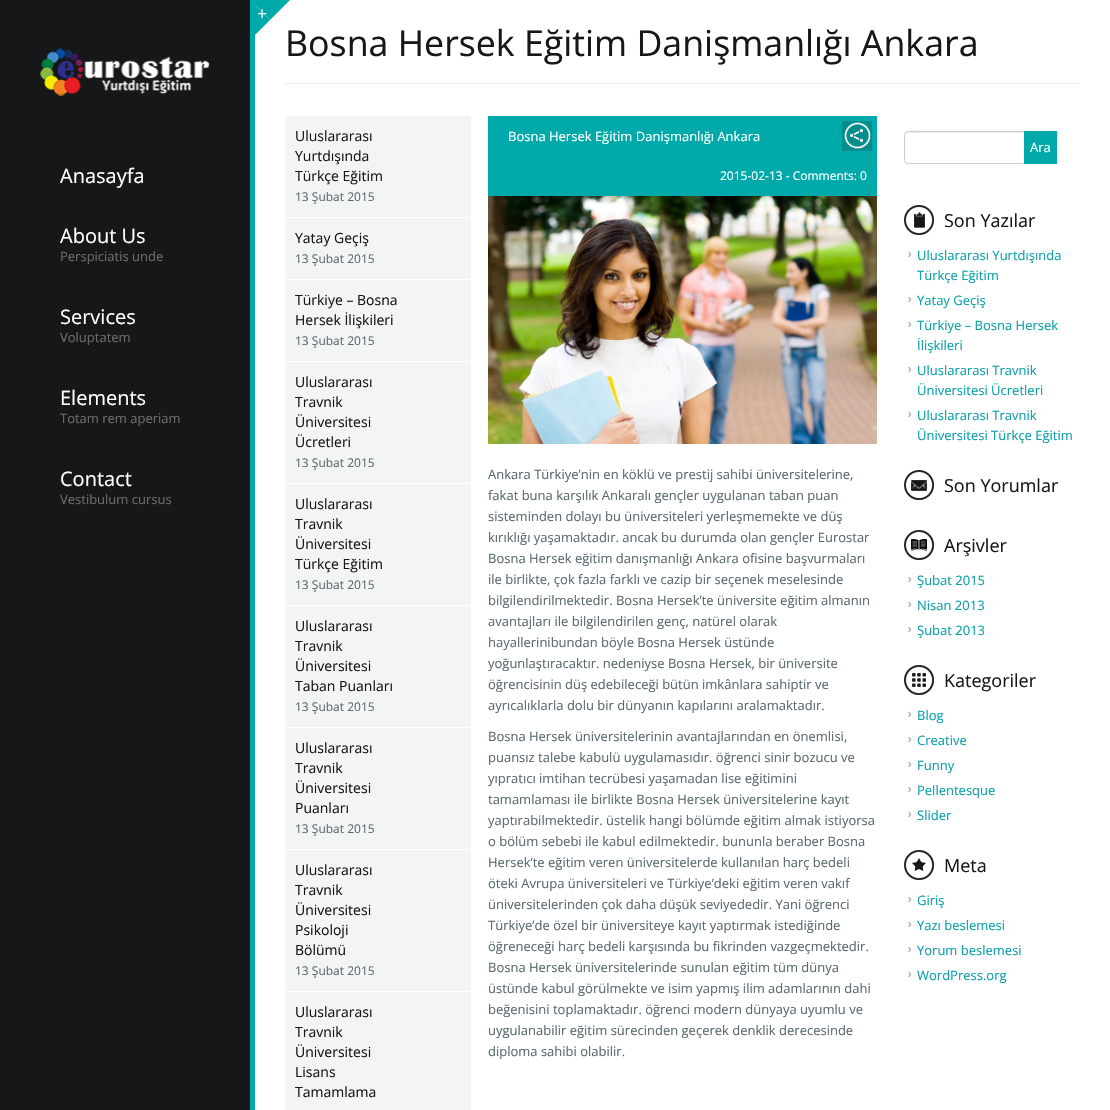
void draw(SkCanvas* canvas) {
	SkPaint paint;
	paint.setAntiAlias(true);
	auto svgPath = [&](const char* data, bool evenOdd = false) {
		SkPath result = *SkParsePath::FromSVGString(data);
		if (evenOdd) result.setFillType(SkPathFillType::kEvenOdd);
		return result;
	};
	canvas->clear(0xff161719);
	canvas->drawImageRect(SkImages::DeferredFromEncodedData(SkData::MakeFromFileName("img1.png")), SkRect::MakeXYWH(40, 48, 170, 48), SkSamplingOptions());
	SkFont f1(fontMgr->matchFamilyStyle("Open Sans", SkFontStyle::Normal()), 20);
	f1.setSubpixel(true);
	paint.setColor(0xffffffff);
	canvas->drawString("Anasayfa", 60, 183, f1, paint);
	canvas->drawString("About Us", 60, 243, f1, paint);
	SkFont f2(fontMgr->matchFamilyStyle("Open Sans", SkFontStyle::Normal()), 13);
	f2.setSubpixel(true);
	paint.setColor(0xff6c6c6c);
	canvas->drawString("Perspiciatis unde", 60, 261, f2, paint);
	paint.setColor(0xffffffff);
	canvas->drawString("Services", 60, 324, f1, paint);
	paint.setColor(0xff6c6c6c);
	canvas->drawString("Voluptatem", 60, 342, f2, paint);
	paint.setColor(0xffffffff);
	canvas->drawString("Elements", 60, 405, f1, paint);
	paint.setColor(0xff6c6c6c);
	canvas->drawString("Totam rem aperiam", 60, 423, f2, paint);
	paint.setColor(0xffffffff);
	canvas->drawString("Contact", 60, 486, f1, paint);
	paint.setColor(0xff6c6c6c);
	canvas->drawString("Vestibulum cursus", 60, 504, f2, paint);
	paint.setColor(0xff00aaaa);
	canvas->drawRect(SkRect::MakeXYWH(250, 0, 5, 1110), paint);
	paint.setColor(0xffffffff);
	canvas->drawRect(SkRect::MakeXYWH(255, 0, 855, 1110), paint);
	paint.setColor(0xff00aaaa);
	canvas->drawPath(svgPath("M250 0H290L270 20Z"), paint);
	canvas->drawPath(svgPath("M250 40V0L270 20Z"), paint);
	canvas->drawImageRect(SkImages::DeferredFromEncodedData(SkData::MakeFromFileName("img2.png")), SkRect::MakeXYWH(258, 9, 9, 9), SkSamplingOptions());
	paint.setColor(0xffeeeeee);
	canvas->drawRect(SkRect::MakeXYWH(285, 83, 795, 1), paint);
	SkFont f3(fontMgr->matchFamilyStyle("Open Sans", SkFontStyle::Normal()), 35.75);
	f3.setSubpixel(true);
	paint.setColor(0xff151719);
	canvas->drawString("Bosna Hersek Eğitim Danişmanlığı Ankara", 285, 56, f3, paint);
	paint.setColor(0xfff3f5f5);
	canvas->drawRect(SkRect::MakeXYWH(285, 116, 186, 101), paint);
	SkFont f4(fontMgr->matchFamilyStyle("Open Sans", SkFontStyle::Normal()), 14);
	f4.setSubpixel(true);
	paint.setColor(0xff151719);
	canvas->drawString("Uluslararası", 295, 141, f4, paint);
	canvas->drawString("Yurtdışında", 295, 161, f4, paint);
	canvas->drawString("Türkçe Eğitim", 295, 181, f4, paint);
	SkFont f5(fontMgr->matchFamilyStyle("Open Sans", SkFontStyle::Normal()), 12);
	f5.setSubpixel(true);
	paint.setColor(0xff5b6a6f);
	canvas->drawString("13 Şubat 2015", 295, 201, f5, paint);
	paint.setColor(0xfff3f5f5);
	canvas->drawRect(SkRect::MakeXYWH(285, 218, 186, 61), paint);
	paint.setColor(0xff151719);
	canvas->drawString("Yatay Geçiş", 295, 243, f4, paint);
	paint.setColor(0xff5b6a6f);
	canvas->drawString("13 Şubat 2015", 295, 263, f5, paint);
	paint.setColor(0xfff3f5f5);
	canvas->drawRect(SkRect::MakeXYWH(285, 280, 186, 81), paint);
	paint.setColor(0xff151719);
	canvas->drawString("Türkiye – Bosna", 295, 305, f4, paint);
	canvas->drawString("Hersek İlişkileri", 295, 325, f4, paint);
	paint.setColor(0xff5b6a6f);
	canvas->drawString("13 Şubat 2015", 295, 345, f5, paint);
	paint.setColor(0xfff3f5f5);
	canvas->drawRect(SkRect::MakeXYWH(285, 362, 186, 121), paint);
	paint.setColor(0xff151719);
	canvas->drawString("Uluslararası", 295, 387, f4, paint);
	canvas->drawString("Travnik", 295, 407, f4, paint);
	canvas->drawString("Üniversitesi", 295, 427, f4, paint);
	canvas->drawString("Ücretleri", 295, 447, f4, paint);
	paint.setColor(0xff5b6a6f);
	canvas->drawString("13 Şubat 2015", 295, 467, f5, paint);
	paint.setColor(0xfff3f5f5);
	canvas->drawRect(SkRect::MakeXYWH(285, 484, 186, 121), paint);
	paint.setColor(0xff151719);
	canvas->drawString("Uluslararası", 295, 509, f4, paint);
	canvas->drawString("Travnik", 295, 529, f4, paint);
	canvas->drawString("Üniversitesi", 295, 549, f4, paint);
	canvas->drawString("Türkçe Eğitim", 295, 569, f4, paint);
	paint.setColor(0xff5b6a6f);
	canvas->drawString("13 Şubat 2015", 295, 589, f5, paint);
	paint.setColor(0xfff3f5f5);
	canvas->drawRect(SkRect::MakeXYWH(285, 606, 186, 121), paint);
	paint.setColor(0xff151719);
	canvas->drawString("Uluslararası", 295, 631, f4, paint);
	canvas->drawString("Travnik", 295, 651, f4, paint);
	canvas->drawString("Üniversitesi", 295, 671, f4, paint);
	canvas->drawString("Taban Puanları", 295, 691, f4, paint);
	paint.setColor(0xff5b6a6f);
	canvas->drawString("13 Şubat 2015", 295, 711, f5, paint);
	paint.setColor(0xfff3f5f5);
	canvas->drawRect(SkRect::MakeXYWH(285, 728, 186, 121), paint);
	paint.setColor(0xff151719);
	canvas->drawString("Uluslararası", 295, 753, f4, paint);
	canvas->drawString("Travnik", 295, 773, f4, paint);
	canvas->drawString("Üniversitesi", 295, 793, f4, paint);
	canvas->drawString("Puanları", 295, 813, f4, paint);
	paint.setColor(0xff5b6a6f);
	canvas->drawString("13 Şubat 2015", 295, 833, f5, paint);
	paint.setColor(0xfff3f5f5);
	canvas->drawRect(SkRect::MakeXYWH(285, 850, 186, 141), paint);
	paint.setColor(0xff151719);
	canvas->drawString("Uluslararası", 295, 875, f4, paint);
	canvas->drawString("Travnik", 295, 895, f4, paint);
	canvas->drawString("Üniversitesi", 295, 915, f4, paint);
	canvas->drawString("Psikoloji", 295, 935, f4, paint);
	canvas->drawString("Bölümü", 295, 955, f4, paint);
	paint.setColor(0xff5b6a6f);
	canvas->drawString("13 Şubat 2015", 295, 975, f5, paint);
	paint.setColor(0xfff3f5f5);
	canvas->drawRect(SkRect::MakeXYWH(285, 992, 186, 118), paint);
	paint.setColor(0xff151719);
	canvas->drawString("Uluslararası", 295, 1017, f4, paint);
	canvas->drawString("Travnik", 295, 1037, f4, paint);
	canvas->drawString("Üniversitesi", 295, 1057, f4, paint);
	canvas->drawString("Lisans", 295, 1077, f4, paint);
	canvas->drawString("Tamamlama", 295, 1097, f4, paint);
	paint.setColor(0xff00aaaa);
	canvas->drawRect(SkRect::MakeXYWH(488, 116, 389, 80), paint);
	paint.setColor(0xffffffff);
	canvas->drawString("Bosna Hersek Eğitim Danişmanlığı Ankara", 508, 141, f2, paint);
	paint.setColor(0xff048d8d);
	canvas->drawRect(SkRect::MakeXYWH(842, 121, 30, 30), paint);
	canvas->drawImageRect(SkImages::DeferredFromEncodedData(SkData::MakeFromFileName("img3.png")), SkRect::MakeXYWH(844, 122, 27, 27), SkSamplingOptions());
	paint.setColor(0xffffffff);
	canvas->drawString("2015-02-13 - Comments: 0", 720, 180, f5, paint);
	canvas->drawImageRect(SkImages::DeferredFromEncodedData(SkData::MakeFromFileName("img4.png")), SkRect::MakeXYWH(488, 196, 389, 248), SkSamplingOptions());
	paint.setColor(0xff5b6a6f);
	canvas->drawString("Ankara Türkiye’nin en köklü ve prestij sahibi üniversitelerine,", 488, 479, f2, paint);
	canvas->drawString("fakat buna karşılık Ankaralı gençler uygulanan taban puan", 488, 500, f2, paint);
	canvas->drawString("sisteminden dolayı bu üniversiteleri yerleşmemekte ve düş", 488, 521, f2, paint);
	canvas->drawString("kırıklığı yaşamaktadır. ancak bu durumda olan gençler Eurostar", 488, 542, f2, paint);
	canvas->drawString("Bosna Hersek eğitim danışmanlığı Ankara ofisine başvurmaları", 488, 563, f2, paint);
	canvas->drawString("ile birlikte, çok fazla farklı ve cazip bir seçenek meselesinde", 488, 584, f2, paint);
	canvas->drawString("bilgilendirilmektedir. Bosna Hersek’te üniversite eğitim almanın", 488, 605, f2, paint);
	canvas->drawString("avantajları ile bilgilendirilen genç, natürel olarak", 488, 626, f2, paint);
	canvas->drawString("hayallerinibundan böyle Bosna Hersek üstünde", 488, 647, f2, paint);
	canvas->drawString("yoğunlaştıracaktır. nedeniyse Bosna Hersek, bir üniversite", 488, 668, f2, paint);
	canvas->drawString("öğrencisinin düş edebileceği bütün imkânlara sahiptir ve", 488, 689, f2, paint);
	canvas->drawString("ayrıcalıklarla dolu bir dünyanın kapılarını aralamaktadır.", 488, 710, f2, paint);
	canvas->drawString("Bosna Hersek üniversitelerinin avantajlarından en önemlisi,", 488, 741, f2, paint);
	canvas->drawString("puansız talebe kabulü uygulamasıdır. öğrenci sinir bozucu ve", 488, 762, f2, paint);
	canvas->drawString("yıpratıcı imtihan tecrübesi yaşamadan lise eğitimini", 488, 783, f2, paint);
	canvas->drawString("tamamlaması ile birlikte Bosna Hersek üniversitelerine kayıt", 488, 804, f2, paint);
	canvas->drawString("yaptırabilmektedir. üstelik hangi bölümde eğitim almak istiyorsa", 488, 825, f2, paint);
	canvas->drawString("o bölüm sebebi ile kabul edilmektedir. bununla beraber Bosna", 488, 846, f2, paint);
	canvas->drawString("Hersek’te eğitim veren üniversitelerde kullanılan harç bedeli", 488, 867, f2, paint);
	canvas->drawString("öteki Avrupa üniversiteleri ve Türkiye’deki eğitim veren vakıf", 488, 888, f2, paint);
	canvas->drawString("üniversitelerinden çok daha düşük seviyededir. Yani öğrenci", 488, 909, f2, paint);
	canvas->drawString("Türkiye’de özel bir üniversiteye kayıt yaptırmak istediğinde", 488, 930, f2, paint);
	canvas->drawString("öğreneceği harç bedeli karşısında bu fikrinden vazgeçmektedir.", 488, 951, f2, paint);
	canvas->drawString("Bosna Hersek üniversitelerinde sunulan eğitim tüm dünya", 488, 972, f2, paint);
	canvas->drawString("üstünde kabul görülmekte ve isim yapmış ilim adamlarının dahi", 488, 993, f2, paint);
	canvas->drawString("beğenisini toplamaktadır. öğrenci modern dünyaya uyumlu ve", 488, 1014, f2, paint);
	canvas->drawString("uygulanabilir eğitim sürecinden geçerek denklik derecesinde", 488, 1035, f2, paint);
	canvas->drawString("diploma sahibi olabilir.", 488, 1056, f2, paint);
	paint.setColor(0xffececec);
	canvas->drawPath(svgPath("M908 133H1023C1025 133 1026 134 1026 136C1026 134 1025 132 1023 132H927C926 132 905 127 905 136C905 134 906 133 908 133Z"), paint);
	paint.setStroke(true);
	paint.setStrokeWidth(1);
	paint.setColor(0xffcccccc);
	canvas->drawRoundRect(SkRect::MakeXYWH(904.5, 131.5, 122, 32), 3.5, 3.5, paint);
	paint.setStroke(false);
	paint.setColor(0xff00aaaa);
	canvas->drawRect(SkRect::MakeXYWH(1024, 131, 33, 33), paint);
	paint.setColor(0xffffffff);
	canvas->drawString("Ara", 1030, 152, f2, paint);
	canvas->drawImageRect(SkImages::DeferredFromEncodedData(SkData::MakeFromFileName("img5.png")), SkRect::MakeXYWH(904, 205, 30, 30), SkSamplingOptions());
	SkFont f6(fontMgr->matchFamilyStyle("Open Sans", SkFontStyle::Normal()), 18);
	f6.setSubpixel(true);
	paint.setColor(0xff151719);
	canvas->drawString("Son Yazılar", 944, 227, f6, paint);
	canvas->drawImageRect(SkImages::DeferredFromEncodedData(SkData::MakeFromFileName("img6.png")), SkRect::MakeXYWH(908, 252, 4, 5), SkSamplingOptions());
	paint.setColor(0xff0aa0aa);
	canvas->drawString("Uluslararası Yurtdışında", 917, 260, f2, paint);
	canvas->drawString("Türkçe Eğitim", 917, 280, f2, paint);
	canvas->drawImageRect(SkImages::DeferredFromEncodedData(SkData::MakeFromFileName("img6.png")), SkRect::MakeXYWH(908, 297, 4, 5), SkSamplingOptions());
	canvas->drawString("Yatay Geçiş", 917, 305, f2, paint);
	canvas->drawImageRect(SkImages::DeferredFromEncodedData(SkData::MakeFromFileName("img6.png")), SkRect::MakeXYWH(908, 322, 4, 5), SkSamplingOptions());
	canvas->drawString("Türkiye – Bosna Hersek", 917, 330, f2, paint);
	canvas->drawString("İlişkileri", 917, 350, f2, paint);
	canvas->drawImageRect(SkImages::DeferredFromEncodedData(SkData::MakeFromFileName("img6.png")), SkRect::MakeXYWH(908, 367, 4, 5), SkSamplingOptions());
	canvas->drawString("Uluslararası Travnik", 917, 375, f2, paint);
	canvas->drawString("Üniversitesi Ücretleri", 917, 395, f2, paint);
	canvas->drawImageRect(SkImages::DeferredFromEncodedData(SkData::MakeFromFileName("img6.png")), SkRect::MakeXYWH(908, 412, 4, 5), SkSamplingOptions());
	canvas->drawString("Uluslararası Travnik", 917, 420, f2, paint);
	canvas->drawString("Üniversitesi Türkçe Eğitim", 917, 440, f2, paint);
	canvas->drawImageRect(SkImages::DeferredFromEncodedData(SkData::MakeFromFileName("img7.png")), SkRect::MakeXYWH(904, 470, 30, 30), SkSamplingOptions());
	paint.setColor(0xff151719);
	canvas->drawString("Son Yorumlar", 944, 492, f6, paint);
	canvas->drawImageRect(SkImages::DeferredFromEncodedData(SkData::MakeFromFileName("img8.png")), SkRect::MakeXYWH(904, 530, 30, 30), SkSamplingOptions());
	canvas->drawString("Arşivler", 944, 552, f6, paint);
	canvas->drawImageRect(SkImages::DeferredFromEncodedData(SkData::MakeFromFileName("img6.png")), SkRect::MakeXYWH(908, 577, 4, 5), SkSamplingOptions());
	paint.setColor(0xff0aa0aa);
	canvas->drawString("Şubat 2015", 917, 585, f2, paint);
	canvas->drawImageRect(SkImages::DeferredFromEncodedData(SkData::MakeFromFileName("img6.png")), SkRect::MakeXYWH(908, 602, 4, 5), SkSamplingOptions());
	canvas->drawString("Nisan 2013", 917, 610, f2, paint);
	canvas->drawImageRect(SkImages::DeferredFromEncodedData(SkData::MakeFromFileName("img6.png")), SkRect::MakeXYWH(908, 627, 4, 5), SkSamplingOptions());
	canvas->drawString("Şubat 2013", 917, 635, f2, paint);
	canvas->drawImageRect(SkImages::DeferredFromEncodedData(SkData::MakeFromFileName("img9.png")), SkRect::MakeXYWH(904, 665, 30, 30), SkSamplingOptions());
	paint.setColor(0xff151719);
	canvas->drawString("Kategoriler", 944, 687, f6, paint);
	canvas->drawImageRect(SkImages::DeferredFromEncodedData(SkData::MakeFromFileName("img6.png")), SkRect::MakeXYWH(908, 712, 4, 5), SkSamplingOptions());
	paint.setColor(0xff0aa0aa);
	canvas->drawString("Blog", 917, 720, f2, paint);
	canvas->drawImageRect(SkImages::DeferredFromEncodedData(SkData::MakeFromFileName("img6.png")), SkRect::MakeXYWH(908, 737, 4, 5), SkSamplingOptions());
	canvas->drawString("Creative", 917, 745, f2, paint);
	canvas->drawImageRect(SkImages::DeferredFromEncodedData(SkData::MakeFromFileName("img6.png")), SkRect::MakeXYWH(908, 762, 4, 5), SkSamplingOptions());
	canvas->drawString("Funny", 917, 770, f2, paint);
	canvas->drawImageRect(SkImages::DeferredFromEncodedData(SkData::MakeFromFileName("img6.png")), SkRect::MakeXYWH(908, 787, 4, 5), SkSamplingOptions());
	canvas->drawString("Pellentesque", 917, 795, f2, paint);
	canvas->drawImageRect(SkImages::DeferredFromEncodedData(SkData::MakeFromFileName("img6.png")), SkRect::MakeXYWH(908, 812, 4, 5), SkSamplingOptions());
	canvas->drawString("Slider", 917, 820, f2, paint);
	canvas->drawImageRect(SkImages::DeferredFromEncodedData(SkData::MakeFromFileName("img10.png")), SkRect::MakeXYWH(904, 850, 30, 30), SkSamplingOptions());
	paint.setColor(0xff151719);
	canvas->drawString("Meta", 944, 872, f6, paint);
	canvas->drawImageRect(SkImages::DeferredFromEncodedData(SkData::MakeFromFileName("img6.png")), SkRect::MakeXYWH(908, 897, 4, 5), SkSamplingOptions());
	paint.setColor(0xff0aa0aa);
	canvas->drawString("Giriş", 917, 905, f2, paint);
	canvas->drawImageRect(SkImages::DeferredFromEncodedData(SkData::MakeFromFileName("img6.png")), SkRect::MakeXYWH(908, 922, 4, 5), SkSamplingOptions());
	canvas->drawString("Yazı beslemesi", 917, 930, f2, paint);
	canvas->drawImageRect(SkImages::DeferredFromEncodedData(SkData::MakeFromFileName("img6.png")), SkRect::MakeXYWH(908, 947, 4, 5), SkSamplingOptions());
	canvas->drawString("Yorum beslemesi", 917, 955, f2, paint);
	canvas->drawImageRect(SkImages::DeferredFromEncodedData(SkData::MakeFromFileName("img6.png")), SkRect::MakeXYWH(908, 972, 4, 5), SkSamplingOptions());
	canvas->drawString("WordPress.org", 917, 980, f2, paint);
}
